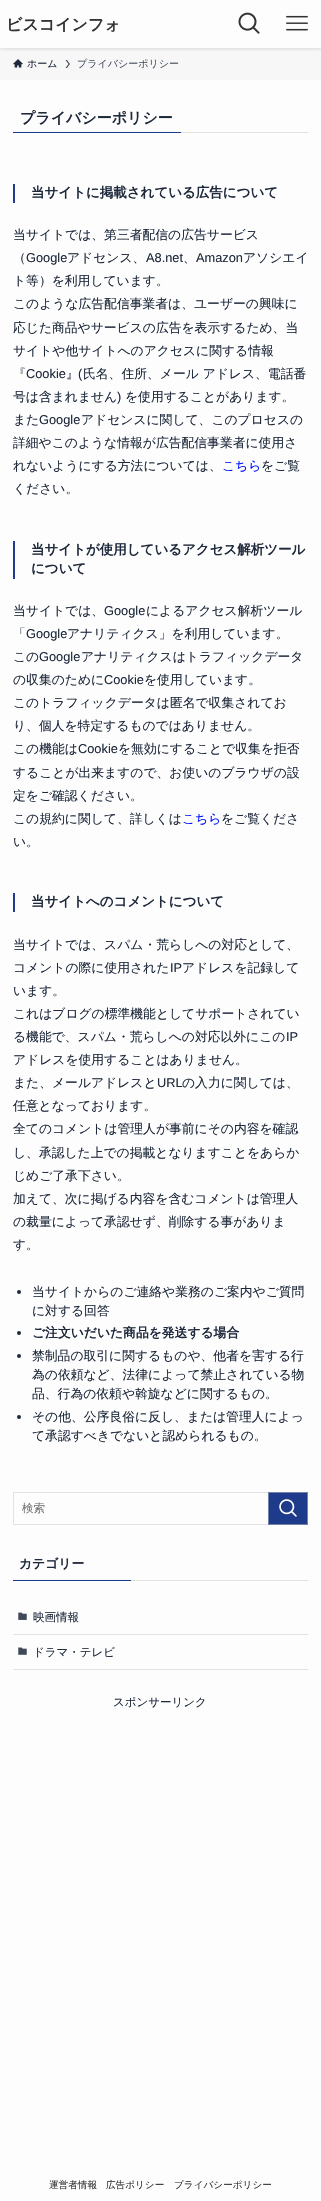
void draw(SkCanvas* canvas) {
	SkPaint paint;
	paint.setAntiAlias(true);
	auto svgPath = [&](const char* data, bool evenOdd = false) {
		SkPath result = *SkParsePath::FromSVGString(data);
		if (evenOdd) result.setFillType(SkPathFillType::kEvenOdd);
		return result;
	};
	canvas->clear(0xfffdfdfd);
	paint.setColor(0xfff7f7f7);
	canvas->drawRect(SkRect::MakeXYWH(0, 48, 321, 32), paint);
	canvas->save();
	canvas->clipRect(SkRect::MakeXYWH(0, 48, 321, 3));
	paint.setColor(0x1f000000);
	paint.setMaskFilter(SkMaskFilter::MakeBlur(kNormal_SkBlurStyle, 2));
	canvas->drawRect(SkRect::MakeXYWH(0, 1, 321, 48), paint);
	paint.setMaskFilter(nullptr);
	canvas->restore();
	SkFont f1(fontMgr->matchFamilyStyle("WenQuanYi Zen Hei", SkFontStyle::Bold()), 16);
	f1.setSubpixel(true);
	paint.setColor(0xff333333);
	canvas->drawString("ビスコインフォ", 6, 30, f1, paint);
	canvas->drawImageRect(SkImages::DeferredFromEncodedData(SkData::MakeFromFileName("img1.png")), SkRect::MakeXYWH(238, 12, 22, 22), SkSamplingOptions());
	canvas->drawImageRect(SkImages::DeferredFromEncodedData(SkData::MakeFromFileName("img2.png")), SkRect::MakeXYWH(286, 15, 22, 16), SkSamplingOptions());
	canvas->drawImageRect(SkImages::DeferredFromEncodedData(SkData::MakeFromFileName("img3.png")), SkRect::MakeXYWH(13, 59, 10, 9), SkSamplingOptions());
	SkFont f2(fontMgr->matchFamilyStyle("WenQuanYi Zen Hei", SkFontStyle(500, SkFontStyle::kNormal_Width, SkFontStyle::kUpright_Slant)), 10);
	f2.setSubpixel(true);
	paint.setColor(0xff1e293b);
	canvas->drawString("ホーム", 27, 67, f2, paint);
	paint.setColor(0xff495261);
	canvas->drawPath(svgPath("M67 60H65.5L68.5 64L65.5 68H67L70 64Z"), paint);
	canvas->drawString("プライバシーポリシー", 77, 67, f2, paint);
	paint.setColor(0xffe2e2e2);
	canvas->drawRect(SkRect::MakeXYWH(181, 132, 127, 1), paint);
	paint.setColor(0xff1e3a8a);
	canvas->drawRect(SkRect::MakeXYWH(13, 132, 168, 1), paint);
	SkFont f3(fontMgr->matchFamilyStyle("WenQuanYi Zen Hei", SkFontStyle::Bold()), 15);
	f3.setSubpixel(true);
	paint.setColor(0xff1e293b);
	canvas->drawString("プライバシーポリシー", 20, 123, f3, paint);
	paint.setColor(0xff1e3a8a);
	canvas->drawRect(SkRect::MakeXYWH(13, 184, 2, 19), paint);
	SkFont f4(fontMgr->matchFamilyStyle("WenQuanYi Zen Hei", SkFontStyle::Bold()), 13.5);
	f4.setSubpixel(true);
	paint.setColor(0xff1e293b);
	canvas->drawString("当サイトに掲載されている広告について", 31, 197, f4, paint);
	SkFont f5(fontMgr->matchFamilyStyle("WenQuanYi Zen Hei", SkFontStyle(500, SkFontStyle::kNormal_Width, SkFontStyle::kUpright_Slant)), 12.8);
	f5.setSubpixel(true);
	canvas->drawString("当サイトでは、第三者配信の広告サービス", 13, 239, f5, paint);
	canvas->drawString("（", 13, 262, f5, paint);
	SkFont f6(fontMgr->matchFamilyStyle("Liberation Sans", SkFontStyle::Normal()), 12.8);
	f6.setSubpixel(true);
	canvas->drawString("Google", 26, 262, f6, paint);
	canvas->drawString("アドセンス、", 67, 262, f5, paint);
	canvas->drawString("A8.net", 146, 262, f6, paint);
	canvas->drawString("、", 183, 262, f5, paint);
	canvas->drawString("Amazon", 196, 262, f6, paint);
	canvas->drawString("アソシエイ", 243, 262, f5, paint);
	canvas->drawString("ト等）を利用しています。", 13, 285, f5, paint);
	canvas->drawString("このような広告配信事業者は、ユーザーの興味に", 13, 308, f5, paint);
	canvas->drawString("応じた商品やサービスの広告を表示するため、当", 13, 332, f5, paint);
	canvas->drawString("サイトや他サイトへのアクセスに関する情報", 13, 355, f5, paint);
	canvas->drawString("『", 13, 378, f5, paint);
	canvas->drawString("Cookie", 26, 378, f6, paint);
	canvas->drawString("』", 66, 378, f5, paint);
	canvas->drawString("(", 78, 378, f6, paint);
	canvas->drawString("氏名、住所、メール アドレス、電話番", 83, 378, f5, paint);
	canvas->drawString("号は含まれません", 13, 401, f5, paint);
	canvas->drawString(")", 117, 401, f6, paint);
	canvas->drawString("を使用することがあります。", 125, 401, f5, paint);
	canvas->drawString("また", 13, 424, f5, paint);
	canvas->drawString("Google", 39, 424, f6, paint);
	canvas->drawString("アドセンスに関して、このプロセスの", 81, 424, f5, paint);
	canvas->drawString("詳細やこのような情報が広告配信事業者に使用さ", 13, 447, f5, paint);
	canvas->drawString("れないようにする方法については、", 13, 470, f5, paint);
	paint.setColor(0xff0015ff);
	canvas->drawString("こちら", 222, 470, f5, paint);
	paint.setColor(0xff1e293b);
	canvas->drawString("をご覧", 261, 470, f5, paint);
	canvas->drawString("ください。", 13, 493, f5, paint);
	paint.setColor(0xff1e3a8a);
	canvas->drawRect(SkRect::MakeXYWH(13, 541, 2, 38), paint);
	paint.setColor(0xff1e293b);
	canvas->drawString("当サイトが使用しているアクセス解析ツール", 31, 554, f4, paint);
	canvas->drawString("について", 31, 573, f4, paint);
	canvas->drawString("当サイトでは、", 13, 615, f5, paint);
	canvas->drawString("Google", 104, 615, f6, paint);
	canvas->drawString("によるアクセス解析ツール", 146, 615, f5, paint);
	canvas->drawString("「", 13, 638, f5, paint);
	canvas->drawString("Google", 26, 638, f6, paint);
	canvas->drawString("アナリティクス」を利用しています。", 67, 638, f5, paint);
	canvas->drawString("この", 13, 661, f5, paint);
	canvas->drawString("Google", 39, 661, f6, paint);
	canvas->drawString("アナリティクスはトラフィックデータ", 81, 661, f5, paint);
	canvas->drawString("の収集のために", 13, 684, f5, paint);
	canvas->drawString("Cookie", 104, 684, f6, paint);
	canvas->drawString("を使用しています。", 144, 684, f5, paint);
	canvas->drawString("このトラフィックデータは匿名で収集されてお", 13, 707, f5, paint);
	canvas->drawString("り、個人を特定するものではありません。", 13, 730, f5, paint);
	canvas->drawString("この機能は", 13, 753, f5, paint);
	canvas->drawString("Cookie", 78, 753, f6, paint);
	canvas->drawString("を無効にすることで収集を拒否", 118, 753, f5, paint);
	canvas->drawString("することが出来ますので、お使いのブラウザの設", 13, 777, f5, paint);
	canvas->drawString("定をご確認ください。", 13, 800, f5, paint);
	canvas->drawString("この規約に関して、詳しくは", 13, 823, f5, paint);
	paint.setColor(0xff0015ff);
	canvas->drawString("こちら", 182, 823, f5, paint);
	paint.setColor(0xff1e293b);
	canvas->drawString("をご覧くださ", 221, 823, f5, paint);
	canvas->drawString("い。", 13, 846, f5, paint);
	paint.setColor(0xff1e3a8a);
	canvas->drawRect(SkRect::MakeXYWH(13, 893, 2, 19), paint);
	paint.setColor(0xff1e293b);
	canvas->drawString("当サイトへのコメントについて", 31, 906, f4, paint);
	canvas->drawString("当サイトでは、スパム・荒らしへの対応として、", 13, 949, f5, paint);
	canvas->drawString("コメントの際に使用された", 13, 972, f5, paint);
	canvas->drawString("IP", 170, 972, f6, paint);
	canvas->drawString("アドレスを記録して", 182, 972, f5, paint);
	canvas->drawString("います。", 13, 995, f5, paint);
	canvas->drawString("これはブログの標準機能としてサポートされてい", 13, 1018, f5, paint);
	canvas->drawString("る機能で、スパム・荒らしへの対応以外にこの", 13, 1041, f5, paint);
	canvas->drawString("IP", 286, 1041, f6, paint);
	canvas->drawString("アドレスを使用することはありません。", 13, 1064, f5, paint);
	canvas->drawString("また、メールアドレスと", 13, 1087, f5, paint);
	canvas->drawString("URL", 157, 1087, f6, paint);
	canvas->drawString("の入力に関しては、", 182, 1087, f5, paint);
	canvas->drawString("任意となっております。", 13, 1110, f5, paint);
	canvas->drawString("全てのコメントは管理人が事前にその内容を確認", 13, 1133, f5, paint);
	canvas->drawString("し、承認した上での掲載となりますことをあらか", 13, 1157, f5, paint);
	canvas->drawString("じめご了承下さい。", 13, 1180, f5, paint);
	canvas->drawString("加えて、次に掲げる内容を含むコメントは管理人", 13, 1203, f5, paint);
	canvas->drawString("の裁量によって承認せず、削除する事がありま", 13, 1226, f5, paint);
	canvas->drawString("す。", 13, 1249, f5, paint);
	canvas->drawCircle(19, 1292, 2, paint);
	canvas->drawString("当サイトからのご連絡や業務のご案内やご質問", 32, 1296, f5, paint);
	canvas->drawString("に対する回答", 32, 1315, f5, paint);
	canvas->drawCircle(19, 1333, 2, paint);
	SkFont f7(fontMgr->matchFamilyStyle("WenQuanYi Zen Hei", SkFontStyle::Bold()), 12.8);
	f7.setSubpixel(true);
	canvas->drawString("ご注文いだいた商品を発送する場合", 32, 1337, f7, paint);
	canvas->drawCircle(19, 1356, 2, paint);
	canvas->drawString("禁制品の取引に関するものや、他者を害する行", 32, 1360, f5, paint);
	canvas->drawString("為の依頼など、法律によって禁止されている物", 32, 1379, f5, paint);
	canvas->drawString("品、行為の依頼や斡旋などに関するもの。", 32, 1398, f5, paint);
	canvas->drawCircle(19, 1417, 2, paint);
	canvas->drawString("その他、公序良俗に反し、または管理人によっ", 32, 1421, f5, paint);
	canvas->drawString("て承認すべきでないと認められるもの。", 32, 1440, f5, paint);
	paint.setStroke(true);
	paint.setStrokeWidth(1);
	paint.setColor(0xffe3e3e3);
	canvas->drawRect(SkRect::MakeXYWH(13.5, 1492.5, 294, 32), paint);
	SkFont f8(fontMgr->matchFamilyStyle("WenQuanYi Zen Hei", SkFontStyle(500, SkFontStyle::kNormal_Width, SkFontStyle::kUpright_Slant)), 11.5);
	f8.setSubpixel(true);
	paint.setStroke(false);
	paint.setColor(0xff757575);
	canvas->drawString("検索", 22, 1512, f8, paint);
	paint.setColor(0xff1e3a8a);
	canvas->drawRect(SkRect::MakeXYWH(268.5, 1492.5, 39, 32), paint);
	paint.setStroke(true);
	paint.setColor(0xff7381a9);
	canvas->drawRect(SkRect::MakeXYWH(268.5, 1492.5, 39, 32), paint);
	canvas->drawImageRect(SkImages::DeferredFromEncodedData(SkData::MakeFromFileName("img4.png")), SkRect::MakeXYWH(279, 1499, 18, 18), SkSamplingOptions());
	paint.setStroke(false);
	paint.setColor(0xff1e293b);
	canvas->drawString("カテゴリー", 19, 1568, f7, paint);
	paint.setColor(0xff1e3a8a);
	canvas->drawRect(SkRect::MakeXYWH(13, 1580, 118, 1), paint);
	paint.setColor(0xffe2e2e2);
	canvas->drawRect(SkRect::MakeXYWH(131, 1580, 177, 1), paint);
	canvas->drawRect(SkRect::MakeXYWH(13, 1634, 295, 1), paint);
	canvas->drawImageRect(SkImages::DeferredFromEncodedData(SkData::MakeFromFileName("img5.png")), SkRect::MakeXYWH(18, 1612, 9, 8), SkSamplingOptions());
	paint.setColor(0xff1e293b);
	canvas->drawString("映画情報", 33, 1621, f8, paint);
	paint.setColor(0xffe2e2e2);
	canvas->drawRect(SkRect::MakeXYWH(13, 1669, 295, 1), paint);
	canvas->drawImageRect(SkImages::DeferredFromEncodedData(SkData::MakeFromFileName("img6.png")), SkRect::MakeXYWH(18, 1647, 9, 8), SkSamplingOptions());
	paint.setColor(0xff1e293b);
	canvas->drawString("ドラマ・テレビ", 33, 1656, f8, paint);
	canvas->drawString("スポンサーリンク", 113, 1706, f8, paint);
	SkFont f9(fontMgr->matchFamilyStyle("WenQuanYi Zen Hei", SkFontStyle(500, SkFontStyle::kNormal_Width, SkFontStyle::kUpright_Slant)), 9.6);
	f9.setSubpixel(true);
	paint.setColor(0xff333333);
	canvas->drawString("運営者情報", 49, 2188, f9, paint);
	canvas->drawString("広告ポリシー", 106, 2188, f9, paint);
	canvas->drawString("プライバシーポリシー", 174, 2188, f9, paint);
}
